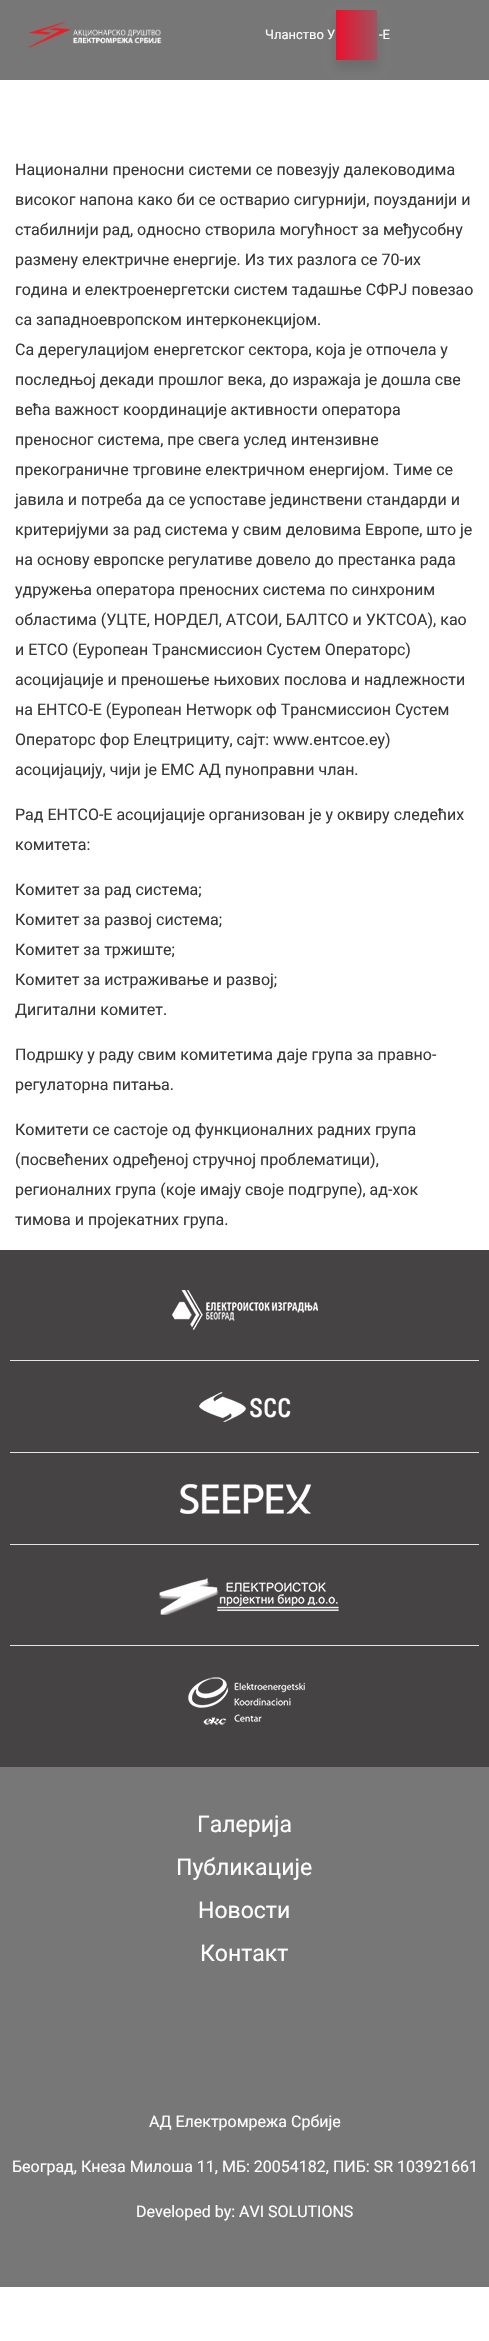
void draw(SkCanvas* canvas) {
	SkPaint paint;
	paint.setAntiAlias(true);
	canvas->clear(0xffffffff);
	paint.setColor(0xff777777);
	canvas->drawRect(SkRect::MakeXYWH(0, 0, 489, 80), paint);
	canvas->drawImageRect(SkImages::DeferredFromEncodedData(SkData::MakeFromFileName("img1.png")), SkRect::MakeXYWH(28, 21, 134, 27), SkSamplingOptions());
	paint.setColor(0x1a0c0c0c);
	paint.setMaskFilter(SkMaskFilter::MakeBlur(kNormal_SkBlurStyle, 5));
	canvas->drawRect(SkRect::MakeXYWH(336, 18, 41, 50), paint);
	paint.setMaskFilter(nullptr);
	{
		const SkColor colors[] = {0xffeb102e, 0xff777777, 0xffeb102e};
		const float stops[] = {0, 0.5, 1};
		const SkPoint ends[] = {{336, 35}, {459, 35}};
		paint.setShader(SkGradientShader::MakeLinear(ends, colors, stops, 3, SkTileMode::kClamp));
		paint.setAlpha(255);
	}
	canvas->drawRect(SkRect::MakeXYWH(336, 10, 41, 50), paint);
	SkFont f1(fontMgr->matchFamilyStyle("Roboto", SkFontStyle::Normal()), 13);
	f1.setSubpixel(true);
	paint.setShader(nullptr);
	paint.setColor(0xffffffff);
	canvas->drawString("Чланство У", 265, 39, f1, paint);
	canvas->drawString("-E", 379, 39, f1, paint);
	SkFont f2(fontMgr->matchFamilyStyle("Roboto", SkFontStyle::Normal()), 16);
	f2.setSubpixel(true);
	paint.setColor(0xff383838);
	canvas->drawString("Национални преносни системи се повезују далеководима", 15, 175, f2, paint);
	canvas->drawString("високог напона како би се остварио сигурнији, поузданији и", 15, 205, f2, paint);
	canvas->drawString("стабилнији рад, односно створила могућност за међусобну", 15, 235, f2, paint);
	canvas->drawString("размену електричне енергије. Из тих разлога се 70-их", 15, 265, f2, paint);
	canvas->drawString("година и електроенергетски систем тадашње СФРЈ повезао", 15, 295, f2, paint);
	canvas->drawString("са западноевропском интерконекцијом.", 15, 325, f2, paint);
	canvas->drawString("Са дерегулацијом енергетског сектора, која је отпочела у", 15, 355, f2, paint);
	canvas->drawString("последњој декади прошлог века, до изражаја је дошла све", 15, 385, f2, paint);
	canvas->drawString("већа важност координације активности оператора", 15, 415, f2, paint);
	canvas->drawString("преносног система, пре свега услед интензивне", 15, 445, f2, paint);
	canvas->drawString("прекограничне трговине електричном енергијом. Тиме се", 15, 475, f2, paint);
	canvas->drawString("јавила и потреба да се успоставе јединствени стандарди и", 15, 505, f2, paint);
	canvas->drawString("критеријуми за рад система у свим деловима Европе, што је", 15, 535, f2, paint);
	canvas->drawString("на основу европске регулативе довело до престанка рада", 15, 565, f2, paint);
	canvas->drawString("удружења оператора преносних система по синхроним", 15, 595, f2, paint);
	canvas->drawString("областима (УЦТЕ, НОРДЕЛ, АТСОИ, БАЛТСО и УКТСОА), као", 15, 625, f2, paint);
	canvas->drawString("и ЕТСО (Еуропеан Трансмиссион Сyстем Операторс)", 15, 655, f2, paint);
	canvas->drawString("асоцијације и преношење њихових послова и надлежности", 15, 685, f2, paint);
	canvas->drawString("на ЕНТСО-Е (Еуропеан Нетwорк оф Трансмиссион Сyстем", 15, 715, f2, paint);
	canvas->drawString("Операторс фор Елецтрицитy, сајт: www.ентсое.еу)", 15, 745, f2, paint);
	canvas->drawString("асоцијацију, чији је ЕМС АД пуноправни члан.", 15, 775, f2, paint);
	canvas->drawString("Рад ЕНТСО-Е асоцијације организован је у оквиру следећих", 15, 820, f2, paint);
	canvas->drawString("комитета:", 15, 850, f2, paint);
	canvas->drawString("Комитет за рад система;", 15, 895, f2, paint);
	canvas->drawString("Комитет за развој система;", 15, 925, f2, paint);
	canvas->drawString("Комитет за тржиште;", 15, 955, f2, paint);
	canvas->drawString("Комитет за истраживање и развој;", 15, 985, f2, paint);
	canvas->drawString("Дигитални комитет.", 15, 1015, f2, paint);
	canvas->drawString("Подршку у раду свим комитетима даје група за правно-", 15, 1060, f2, paint);
	canvas->drawString("регулаторна питања.", 15, 1090, f2, paint);
	canvas->drawString("Комитети се састоје од функционалних радних група", 15, 1135, f2, paint);
	canvas->drawString("(посвећених одређеној стручној проблематици),", 15, 1165, f2, paint);
	canvas->drawString("регионалних група (које имају своје подгрупе), ад-хок", 15, 1195, f2, paint);
	canvas->drawString("тимова и пројекатних група.", 15, 1225, f2, paint);
	paint.setColor(0xff454344);
	canvas->drawRect(SkRect::MakeXYWH(0, 1250, 489, 517), paint);
	paint.setColor(0xffe5e5e5);
	canvas->drawRect(SkRect::MakeXYWH(10, 1360, 469, 1), paint);
	canvas->drawImageRect(SkImages::DeferredFromEncodedData(SkData::MakeFromFileName("img2.png")), SkRect::MakeXYWH(172, 1290, 146, 40), SkSamplingOptions());
	canvas->drawRect(SkRect::MakeXYWH(10, 1452, 469, 1), paint);
	canvas->drawImageRect(SkImages::DeferredFromEncodedData(SkData::MakeFromFileName("img3.png")), SkRect::MakeXYWH(199, 1392, 92, 30), SkSamplingOptions());
	canvas->drawRect(SkRect::MakeXYWH(10, 1544, 469, 1), paint);
	canvas->drawImageRect(SkImages::DeferredFromEncodedData(SkData::MakeFromFileName("img4.png")), SkRect::MakeXYWH(180, 1484, 131, 30), SkSamplingOptions());
	canvas->drawRect(SkRect::MakeXYWH(10, 1645, 469, 1), paint);
	canvas->drawImageRect(SkImages::DeferredFromEncodedData(SkData::MakeFromFileName("img5.png")), SkRect::MakeXYWH(159, 1578, 180, 37), SkSamplingOptions());
	canvas->drawImageRect(SkImages::DeferredFromEncodedData(SkData::MakeFromFileName("img6.png")), SkRect::MakeXYWH(188, 1677, 117, 48), SkSamplingOptions());
	paint.setColor(0xff777777);
	canvas->drawRect(SkRect::MakeXYWH(0, 1767, 489, 520), paint);
	SkFont f3(fontMgr->matchFamilyStyle("Roboto", SkFontStyle::Normal()), 23);
	f3.setSubpixel(true);
	paint.setColor(0xffffffff);
	canvas->drawString("Галерија", 197, 1832, f3, paint);
	canvas->drawString("Публикације", 176, 1875, f3, paint);
	canvas->drawString("Новости", 198, 1918, f3, paint);
	canvas->drawString("Контакт", 200, 1961, f3, paint);
	canvas->drawString("АД Електромрежа Србије", 149, 2127, f2, paint);
	canvas->drawString("Београд, Кнеза Милоша 11, МБ: 20054182, ПИБ: SR 103921661", 12, 2172, f2, paint);
	canvas->drawString("Developed by: AVI SOLUTIONS", 136, 2217, f2, paint);
}
